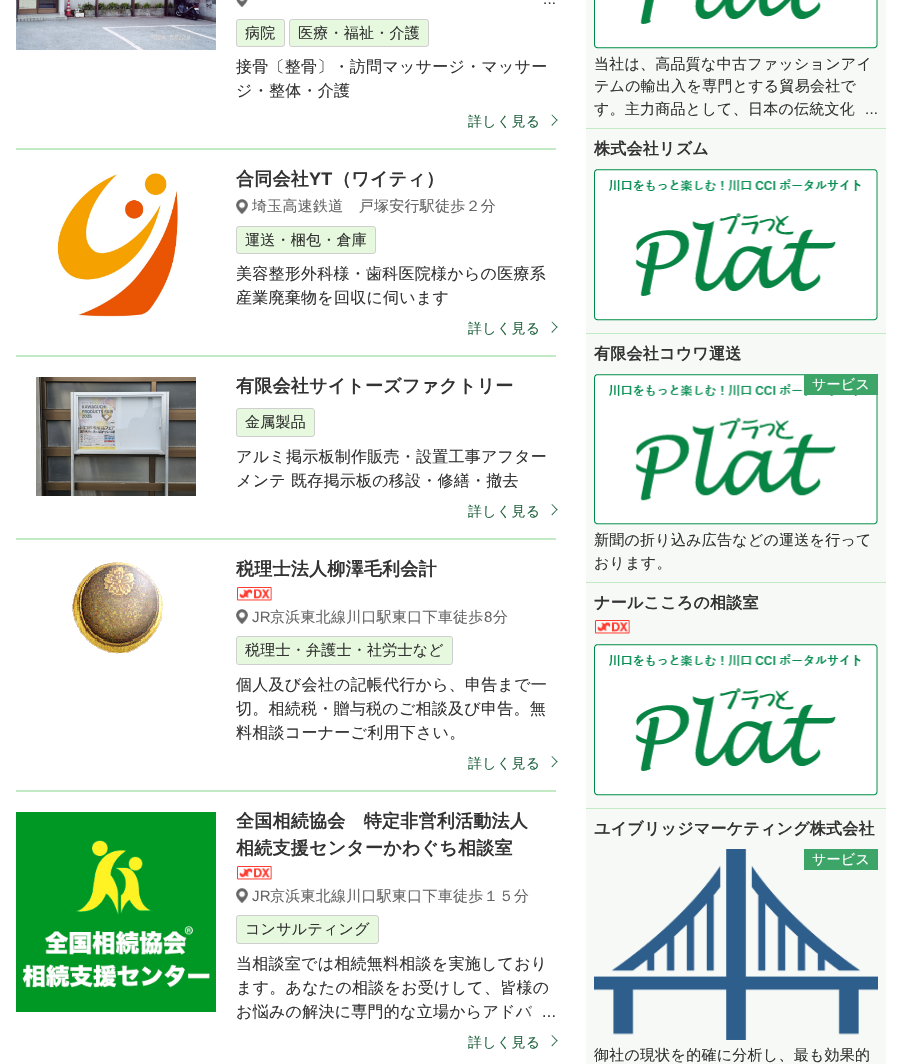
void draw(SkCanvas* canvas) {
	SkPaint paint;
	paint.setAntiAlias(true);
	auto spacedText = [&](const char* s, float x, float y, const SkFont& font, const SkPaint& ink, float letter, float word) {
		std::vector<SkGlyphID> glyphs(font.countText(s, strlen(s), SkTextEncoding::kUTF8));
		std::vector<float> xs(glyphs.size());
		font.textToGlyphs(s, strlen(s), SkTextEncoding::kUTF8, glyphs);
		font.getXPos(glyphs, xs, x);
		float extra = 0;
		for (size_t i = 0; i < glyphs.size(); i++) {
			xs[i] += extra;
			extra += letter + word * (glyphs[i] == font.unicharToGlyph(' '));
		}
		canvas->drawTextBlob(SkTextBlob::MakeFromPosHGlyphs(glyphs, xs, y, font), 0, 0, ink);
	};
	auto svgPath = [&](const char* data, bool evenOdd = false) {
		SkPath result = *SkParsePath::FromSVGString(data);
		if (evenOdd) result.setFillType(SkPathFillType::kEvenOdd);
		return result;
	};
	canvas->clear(0xffffffff);
	paint.setColor(0xffc1eac5);
	canvas->drawRect(SkRect::MakeXYWH(16, 148, 540, 2), paint);
	canvas->drawImageRect(SkImages::DeferredFromEncodedData(SkData::MakeFromFileName("img1.png")), SkRect::MakeXYWH(16, 0, 200, 50), SkSamplingOptions());
	canvas->drawImageRect(SkImages::DeferredFromEncodedData(SkData::MakeFromFileName("img2.png")), SkRect::MakeXYWH(236, 0, 12, 7), SkSamplingOptions());
	SkFont f1(fontMgr->matchFamilyStyle("Liberation Sans", SkFontStyle::Normal()), 15);
	f1.setSubpixel(true);
	paint.setColor(0xff333333);
	spacedText("...", 543, 4, f1, paint, 0.25, 0);
	paint.setColor(0xffe6f9de);
	canvas->drawRoundRect(SkRect::MakeXYWH(236.5, 19.5, 48, 27), 2.5, 2.5, paint);
	paint.setStroke(true);
	paint.setStrokeWidth(1);
	paint.setColor(0xffcfcfcf);
	canvas->drawRoundRect(SkRect::MakeXYWH(236.5, 19.5, 48, 27), 2.5, 2.5, paint);
	SkFont f2(fontMgr->matchFamilyStyle("WenQuanYi Zen Hei", SkFontStyle(500, SkFontStyle::kNormal_Width, SkFontStyle::kUpright_Slant)), 15);
	f2.setSubpixel(true);
	paint.setStroke(false);
	paint.setColor(0xff333333);
	spacedText("病院", 245, 38, f2, paint, 0.25, 0);
	paint.setColor(0xffe6f9de);
	canvas->drawRoundRect(SkRect::MakeXYWH(289.5, 19.5, 139, 27), 2.5, 2.5, paint);
	paint.setStroke(true);
	paint.setColor(0xffcfcfcf);
	canvas->drawRoundRect(SkRect::MakeXYWH(289.5, 19.5, 139, 27), 2.5, 2.5, paint);
	paint.setStroke(false);
	paint.setColor(0xff333333);
	spacedText("医療・福祉・介護", 298, 38, f2, paint, 0.25, 0);
	SkFont f3(fontMgr->matchFamilyStyle("WenQuanYi Zen Hei", SkFontStyle(500, SkFontStyle::kNormal_Width, SkFontStyle::kUpright_Slant)), 16);
	f3.setSubpixel(true);
	spacedText("接骨〔整骨〕・訪問マッサージ・マッサー", 236, 72, f3, paint, 0.25, 0);
	spacedText("ジ・整体・介護", 236, 96, f3, paint, 0.25, 0);
	SkFont f4(fontMgr->matchFamilyStyle("WenQuanYi Zen Hei", SkFontStyle(500, SkFontStyle::kNormal_Width, SkFontStyle::kUpright_Slant)), 14);
	f4.setSubpixel(true);
	paint.setColor(0xff246643);
	spacedText("詳しく見る", 468, 126, f4, paint, 0.25, 0);
	canvas->drawPath(svgPath("M552 114.5L557.5 120L557 121L551.5 115Z"), paint);
	canvas->drawPath(svgPath("M557 119.5L557.5 120L552 126L551.5 125Z"), paint);
	paint.setColor(0xffc1eac5);
	canvas->drawRect(SkRect::MakeXYWH(16, 355, 540, 2), paint);
	canvas->drawImageRect(SkImages::DeferredFromEncodedData(SkData::MakeFromFileName("img3.png")), SkRect::MakeXYWH(57, 173, 122, 144), SkSamplingOptions());
	SkFont f5(fontMgr->matchFamilyStyle("WenQuanYi Zen Hei", SkFontStyle::Bold()), 18);
	f5.setSubpixel(true);
	paint.setColor(0xff333333);
	spacedText("合同会社", 236, 185, f5, paint, 0.25, 0);
	SkFont f6(fontMgr->matchFamilyStyle("Liberation Sans", SkFontStyle::Bold()), 18);
	f6.setSubpixel(true);
	spacedText("YT", 309, 185, f6, paint, 0.25, 0);
	spacedText("（ワイティ）", 333, 185, f5, paint, 0.25, 0);
	canvas->drawImageRect(SkImages::DeferredFromEncodedData(SkData::MakeFromFileName("img4.png")), SkRect::MakeXYWH(236, 199, 12, 15), SkSamplingOptions());
	paint.setColor(0xff666666);
	spacedText("埼玉高速鉄道　戸塚安行駅徒歩２分", 252, 211, f2, paint, 0.25, 0);
	paint.setColor(0xffe6f9de);
	canvas->drawRoundRect(SkRect::MakeXYWH(236.5, 226.5, 139, 27), 2.5, 2.5, paint);
	paint.setStroke(true);
	paint.setColor(0xffcfcfcf);
	canvas->drawRoundRect(SkRect::MakeXYWH(236.5, 226.5, 139, 27), 2.5, 2.5, paint);
	paint.setStroke(false);
	paint.setColor(0xff333333);
	spacedText("運送・梱包・倉庫", 245, 245, f2, paint, 0.25, 0);
	spacedText("美容整形外科様・歯科医院様からの医療系", 236, 279, f3, paint, 0.25, 0);
	spacedText("産業廃棄物を回収に伺います", 236, 303, f3, paint, 0.25, 0);
	paint.setColor(0xff246643);
	spacedText("詳しく見る", 468, 333, f4, paint, 0.25, 0);
	canvas->drawPath(svgPath("M552 321.5L557.5 327L557 328L551.5 322Z"), paint);
	canvas->drawPath(svgPath("M557 326.5L557.5 327L552 333L551.5 332Z"), paint);
	paint.setColor(0xffc1eac5);
	canvas->drawRect(SkRect::MakeXYWH(16, 538, 540, 2), paint);
	canvas->drawImageRect(SkImages::DeferredFromEncodedData(SkData::MakeFromFileName("img5.png")), SkRect::MakeXYWH(36, 377, 160, 119), SkSamplingOptions());
	paint.setColor(0xff333333);
	spacedText("有限会社サイトーズファクトリー", 236, 392, f5, paint, 0.25, 0);
	paint.setColor(0xffe6f9de);
	canvas->drawRoundRect(SkRect::MakeXYWH(236.5, 408.5, 78, 28), 2.5, 2.5, paint);
	paint.setStroke(true);
	paint.setColor(0xffcfcfcf);
	canvas->drawRoundRect(SkRect::MakeXYWH(236.5, 408.5, 78, 28), 2.5, 2.5, paint);
	paint.setStroke(false);
	paint.setColor(0xff333333);
	spacedText("金属製品", 245, 427, f2, paint, 0.25, 0);
	spacedText("アルミ掲示板制作販売・設置工事アフター", 236, 462, f3, paint, 0.25, 0);
	spacedText("メンテ 既存掲示板の移設・修繕・撤去", 236, 486, f3, paint, 0.25, 0);
	paint.setColor(0xff246643);
	spacedText("詳しく見る", 468, 516, f4, paint, 0.25, 0);
	canvas->drawPath(svgPath("M552 504L557.5 509.5L557 510.5L551.5 504.5Z"), paint);
	canvas->drawPath(svgPath("M557 509L557.5 509.5L552 515.5L551.5 514.5Z"), paint);
	paint.setColor(0xffc1eac5);
	canvas->drawRect(SkRect::MakeXYWH(16, 790, 540, 2), paint);
	canvas->drawImageRect(SkImages::DeferredFromEncodedData(SkData::MakeFromFileName("img6.png")), SkRect::MakeXYWH(72, 562, 91, 92), SkSamplingOptions());
	paint.setColor(0xff333333);
	spacedText("税理士法人柳澤毛利会計", 236, 575, f5, paint, 0.25, 0);
	canvas->drawImageRect(SkImages::DeferredFromEncodedData(SkData::MakeFromFileName("img7.png")), SkRect::MakeXYWH(237, 587, 35, 14), SkSamplingOptions());
	canvas->drawImageRect(SkImages::DeferredFromEncodedData(SkData::MakeFromFileName("img4.png")), SkRect::MakeXYWH(236, 609, 12, 15), SkSamplingOptions());
	paint.setColor(0xff666666);
	spacedText("JR", 252, 622, f1, paint, 0.25, 0);
	spacedText("京浜東北線川口駅東口下車徒歩", 270, 622, f2, paint, 0.25, 0);
	spacedText("8", 484, 622, f1, paint, 0.25, 0);
	spacedText("分", 493, 622, f2, paint, 0.25, 0);
	paint.setColor(0xffe6f9de);
	canvas->drawRoundRect(SkRect::MakeXYWH(236.5, 636.5, 216, 28), 2.5, 2.5, paint);
	paint.setStroke(true);
	paint.setColor(0xffcfcfcf);
	canvas->drawRoundRect(SkRect::MakeXYWH(236.5, 636.5, 216, 28), 2.5, 2.5, paint);
	paint.setStroke(false);
	paint.setColor(0xff333333);
	spacedText("税理士・弁護士・社労士など", 245, 655, f2, paint, 0.25, 0);
	spacedText("個人及び会社の記帳代行から、申告まで一", 236, 690, f3, paint, 0.25, 0);
	spacedText("切。相続税・贈与税のご相談及び申告。無", 236, 714, f3, paint, 0.25, 0);
	spacedText("料相談コーナーご利用下さい。", 236, 738, f3, paint, 0.25, 0);
	paint.setColor(0xff246643);
	spacedText("詳しく見る", 468, 768, f4, paint, 0.25, 0);
	canvas->drawPath(svgPath("M552 756L557.5 761.5L557 762.5L551.5 756.5Z"), paint);
	canvas->drawPath(svgPath("M557 761L557.5 761.5L552 767.5L551.5 766.5Z"), paint);
	canvas->drawImageRect(SkImages::DeferredFromEncodedData(SkData::MakeFromFileName("img8.png")), SkRect::MakeXYWH(16, 812, 200, 200), SkSamplingOptions());
	paint.setColor(0xff333333);
	spacedText("全国相続協会　特定非営利活動法人", 236, 827, f5, paint, 0.25, 0);
	spacedText("相続支援センターかわぐち相談室", 236, 854, f5, paint, 0.25, 0);
	canvas->drawImageRect(SkImages::DeferredFromEncodedData(SkData::MakeFromFileName("img7.png")), SkRect::MakeXYWH(237, 866, 35, 14), SkSamplingOptions());
	canvas->drawImageRect(SkImages::DeferredFromEncodedData(SkData::MakeFromFileName("img4.png")), SkRect::MakeXYWH(236, 888, 12, 15), SkSamplingOptions());
	paint.setColor(0xff666666);
	spacedText("JR", 252, 901, f1, paint, 0.25, 0);
	spacedText("京浜東北線川口駅東口下車徒歩１５分", 270, 901, f2, paint, 0.25, 0);
	{
		const SkColor colors[] = {0x00ffffff, 0xffffffff};
		const float stops[] = {0, 0.5};
		const SkPoint ends[] = {{527, 896}, {556, 896}};
		paint.setShader(SkGradientShader::MakeLinear(ends, colors, stops, 2, SkTileMode::kClamp));
		paint.setAlpha(255);
	}
	canvas->drawRect(SkRect::MakeXYWH(527, 894, 2, 2), paint);
	paint.setShader(nullptr);
	paint.setColor(0xffe6f9de);
	canvas->drawRoundRect(SkRect::MakeXYWH(236.5, 915.5, 142, 28), 2.5, 2.5, paint);
	paint.setStroke(true);
	paint.setColor(0xffcfcfcf);
	canvas->drawRoundRect(SkRect::MakeXYWH(236.5, 915.5, 142, 28), 2.5, 2.5, paint);
	paint.setStroke(false);
	paint.setColor(0xff333333);
	spacedText("コンサルティング", 245, 934, f2, paint, 0.25, 0);
	spacedText("当相談室では相続無料相談を実施しており", 236, 969, f3, paint, 0.25, 0);
	spacedText("ます。あなたの相談をお受けして、皆様の", 236, 993, f3, paint, 0.25, 0);
	spacedText("お悩みの解決に専門的な立場からアドバ", 236, 1017, f3, paint, 0.25, 0);
	{
		const SkColor colors[] = {0x00ffffff, 0xffffffff};
		const float stops[] = {0, 0.5};
		const SkPoint ends[] = {{526, 1012}, {556, 1012}};
		paint.setShader(SkGradientShader::MakeLinear(ends, colors, stops, 2, SkTileMode::kClamp));
		paint.setAlpha(255);
	}
	canvas->drawRect(SkRect::MakeXYWH(526, 1005, 7, 12), paint);
	SkFont f7(fontMgr->matchFamilyStyle("Liberation Sans", SkFontStyle::Normal()), 16);
	f7.setSubpixel(true);
	paint.setShader(nullptr);
	paint.setColor(0xff333333);
	spacedText("...", 542, 1017, f7, paint, 0.25, 0);
	paint.setColor(0xff246643);
	spacedText("詳しく見る", 468, 1047, f4, paint, 0.25, 0);
	canvas->drawPath(svgPath("M552 1035L557.5 1040.5L557 1041.5L551.5 1035.5Z"), paint);
	canvas->drawPath(svgPath("M557 1040L557.5 1040.5L552 1046.5L551.5 1045.5Z"), paint);
	paint.setColor(0xfff7f9f7);
	canvas->drawRect(SkRect::MakeXYWH(586, 0, 300, 1064), paint);
	paint.setColor(0xffc1eac5);
	canvas->drawRect(SkRect::MakeXYWH(586, 128, 300, 1), paint);
	canvas->drawImageRect(SkImages::DeferredFromEncodedData(SkData::MakeFromFileName("img9.png")), SkRect::MakeXYWH(594, 0, 284, 49), SkSamplingOptions());
	paint.setColor(0xff333333);
	spacedText("当社は、高品質な中古ファッションアイ", 594, 69, f2, paint, 0.25, 0);
	spacedText("テムの輸出入を専門とする貿易会社で", 594, 91, f2, paint, 0.25, 0);
	spacedText("す。主力商品として、日本の伝統文化", 594, 114, f2, paint, 0.25, 0);
	{
		const SkColor colors[] = {0x00f7f9f7, 0xfff7f9f7};
		const float stops[] = {0, 0.5};
		const SkPoint ends[] = {{849, 109}, {878, 109}};
		paint.setShader(SkGradientShader::MakeLinear(ends, colors, stops, 2, SkTileMode::kClamp));
		paint.setAlpha(255);
	}
	canvas->drawRect(SkRect::MakeXYWH(849, 105, 6, 11), paint);
	paint.setShader(nullptr);
	paint.setColor(0xff333333);
	spacedText("...", 865, 114, f1, paint, 0.25, 0);
	paint.setColor(0xffc1eac5);
	canvas->drawRect(SkRect::MakeXYWH(586, 333, 300, 1), paint);
	SkFont f8(fontMgr->matchFamilyStyle("WenQuanYi Zen Hei", SkFontStyle::Bold()), 16);
	f8.setSubpixel(true);
	paint.setColor(0xff333333);
	spacedText("株式会社リズム", 594, 154, f8, paint, 0.25, 0);
	canvas->drawImageRect(SkImages::DeferredFromEncodedData(SkData::MakeFromFileName("img10.png")), SkRect::MakeXYWH(594, 169, 284, 152), SkSamplingOptions());
	paint.setColor(0xffc1eac5);
	canvas->drawRect(SkRect::MakeXYWH(586, 582, 300, 1), paint);
	paint.setColor(0xff333333);
	spacedText("有限会社コウワ運送", 594, 359, f8, paint, 0.25, 0);
	canvas->drawImageRect(SkImages::DeferredFromEncodedData(SkData::MakeFromFileName("img11.png")), SkRect::MakeXYWH(594, 374, 284, 151), SkSamplingOptions());
	paint.setColor(0xff3da568);
	canvas->drawRect(SkRect::MakeXYWH(804, 374, 74, 21), paint);
	paint.setColor(0xffffffff);
	spacedText("サービス", 812, 389, f4, paint, 0.25, 0);
	paint.setColor(0xff333333);
	spacedText("新聞の折り込み広告などの運送を行って", 594, 545, f2, paint, 0.25, 0);
	spacedText("おります。", 594, 568, f2, paint, 0.25, 0);
	paint.setColor(0xffc1eac5);
	canvas->drawRect(SkRect::MakeXYWH(586, 808, 300, 1), paint);
	paint.setColor(0xff333333);
	spacedText("ナールこころの相談室", 594, 608, f8, paint, 0.25, 0);
	canvas->drawImageRect(SkImages::DeferredFromEncodedData(SkData::MakeFromFileName("img12.png")), SkRect::MakeXYWH(595, 620, 35, 14), SkSamplingOptions());
	canvas->drawImageRect(SkImages::DeferredFromEncodedData(SkData::MakeFromFileName("img10.png")), SkRect::MakeXYWH(594, 644, 284, 152), SkSamplingOptions());
	spacedText("ユイブリッジマーケティング株式会社", 594, 834, f8, paint, 0.25, 0);
	canvas->drawImageRect(SkImages::DeferredFromEncodedData(SkData::MakeFromFileName("img13.png")), SkRect::MakeXYWH(594, 849, 284, 191), SkSamplingOptions());
	paint.setColor(0xff3da568);
	canvas->drawRect(SkRect::MakeXYWH(804, 849, 74, 21), paint);
	paint.setColor(0xffffffff);
	spacedText("サービス", 812, 864, f4, paint, 0.25, 0);
	paint.setColor(0xff333333);
	spacedText("御社の現状を的確に分析し、最も効果的", 594, 1060, f2, paint, 0.25, 0);
}
